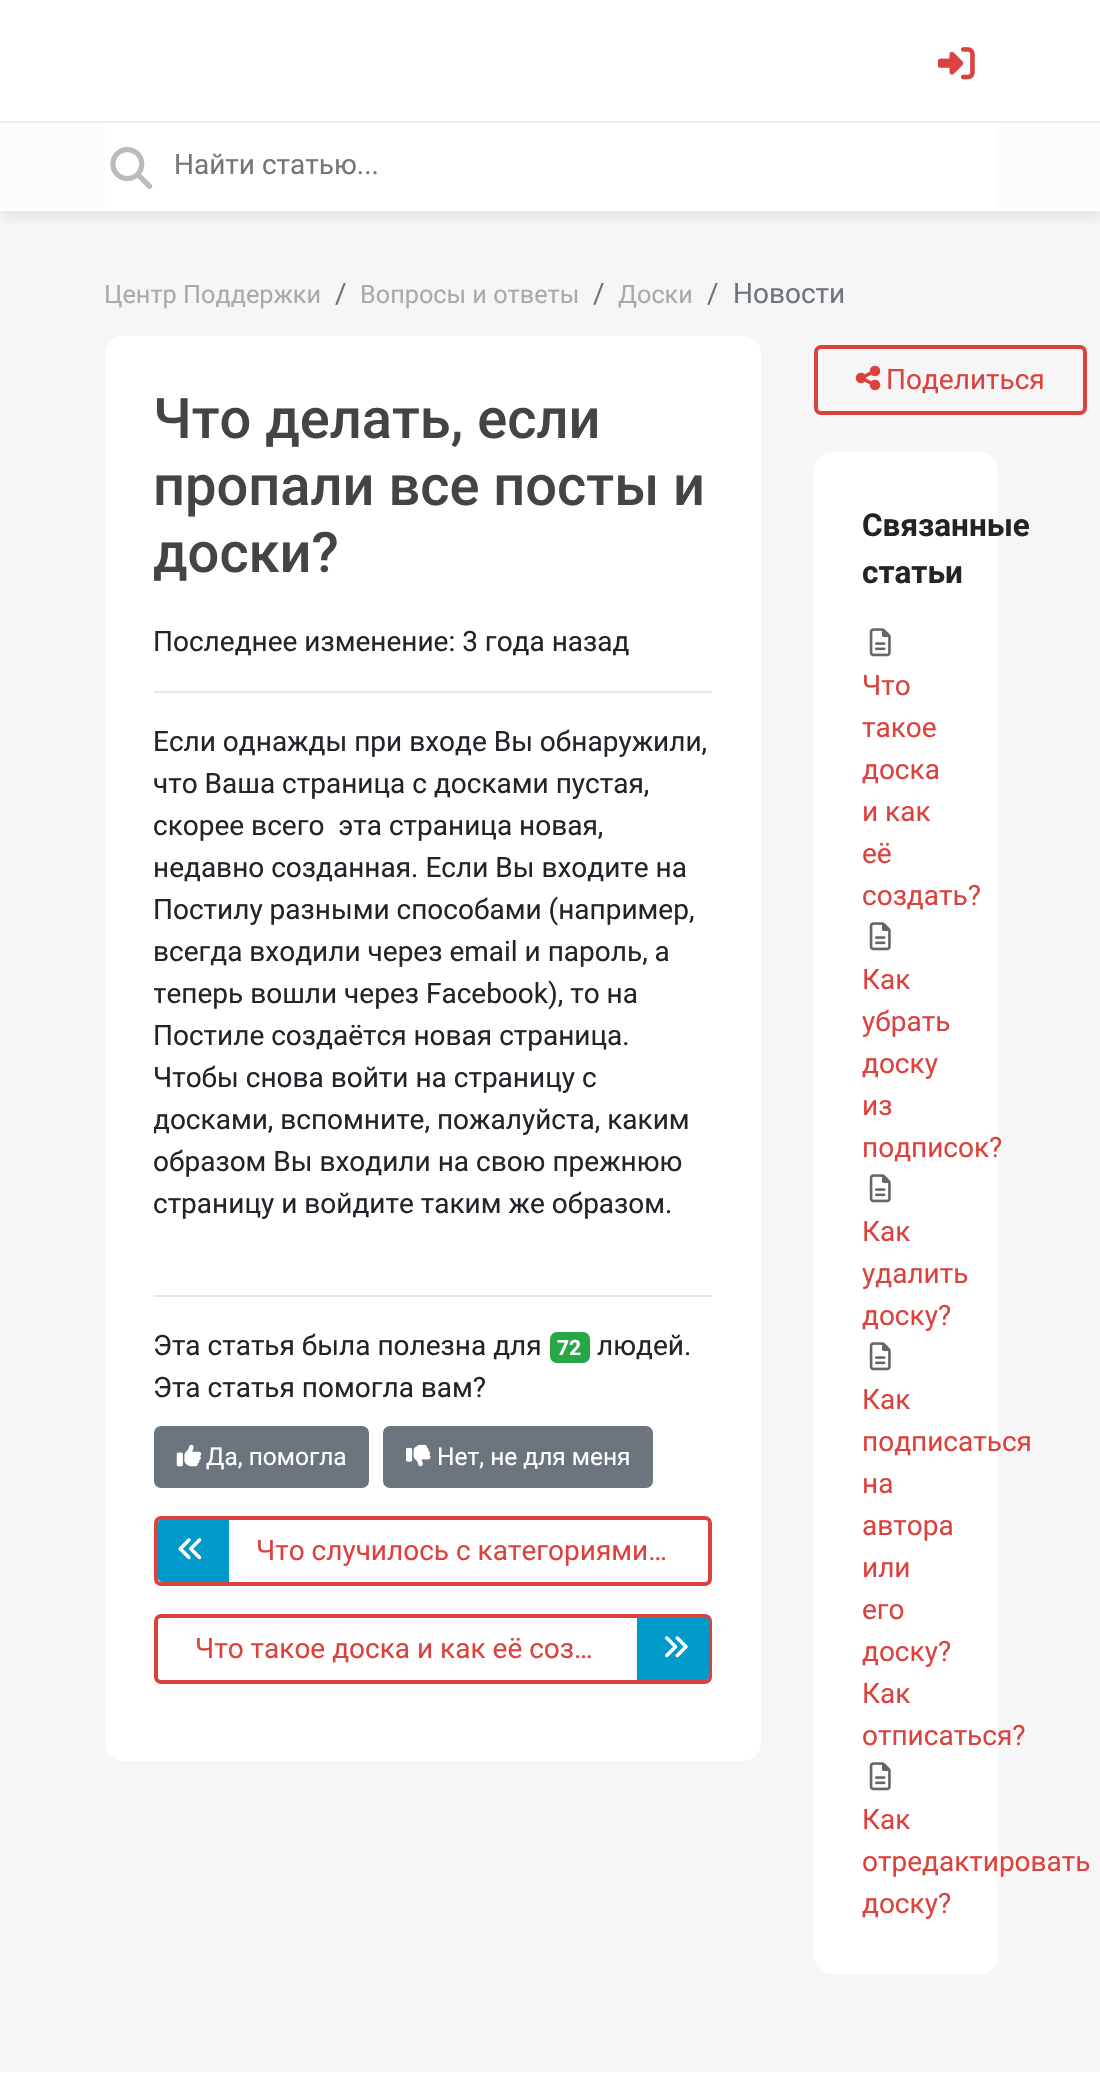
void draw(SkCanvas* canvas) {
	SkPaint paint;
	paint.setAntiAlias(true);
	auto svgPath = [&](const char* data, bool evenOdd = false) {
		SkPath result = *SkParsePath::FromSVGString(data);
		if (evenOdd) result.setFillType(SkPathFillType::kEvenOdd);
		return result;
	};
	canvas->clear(0xfff6f6f6);
	paint.setColor(0xffffffff);
	canvas->drawRect(SkRect::MakeXYWH(0, 0, 1100, 121), paint);
	canvas->drawImageRect(SkImages::DeferredFromEncodedData(SkData::MakeFromFileName("img1.png")), SkRect::MakeXYWH(938, 47, 37, 33), SkSamplingOptions());
	paint.setColor(0x1a646464);
	paint.setMaskFilter(SkMaskFilter::MakeBlur(kNormal_SkBlurStyle, 4.5));
	canvas->drawRect(SkRect::MakeXYWH(0, 130, 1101, 89), paint);
	paint.setMaskFilter(nullptr);
	paint.setColor(0xfffcfcfc);
	canvas->drawRect(SkRect::MakeXYWH(0, 123, 1100, 84), paint);
	paint.setColor(0xffeeeeee);
	canvas->drawRect(SkRect::MakeXYWH(0, 121, 1100, 2), paint);
	paint.setColor(0xffffffff);
	canvas->drawRect(SkRect::MakeXYWH(0, 207, 1100, 4), paint);
	canvas->drawRect(SkRect::MakeXYWH(105, 123, 893, 84), paint);
	canvas->drawImageRect(SkImages::DeferredFromEncodedData(SkData::MakeFromFileName("img2.png")), SkRect::MakeXYWH(110, 147, 43, 42), SkSamplingOptions());
	SkFont f1(fontMgr->matchFamilyStyle("Roboto", SkFontStyle::Normal()), 28);
	f1.setSubpixel(true);
	paint.setColor(0xff757575);
	canvas->drawString("Найти статью...", 174, 174, f1, paint);
	SkFont f2(fontMgr->matchFamilyStyle("Roboto", SkFontStyle::Normal()), 25.25);
	f2.setSubpixel(true);
	paint.setColor(0xffaaaaaa);
	canvas->drawString("Центр Поддержки", 104, 303, f2, paint);
	paint.setColor(0xff6c757d);
	canvas->drawString("/", 335, 303, f1, paint);
	paint.setColor(0xffaaaaaa);
	canvas->drawString("Вопросы и ответы", 360, 303, f2, paint);
	paint.setColor(0xff6c757d);
	canvas->drawString("/", 593, 303, f1, paint);
	paint.setColor(0xffaaaaaa);
	canvas->drawString("Доски", 618, 303, f2, paint);
	paint.setColor(0xff6c757d);
	canvas->drawString("/", 707, 303, f1, paint);
	canvas->drawString("Новости", 733, 303, f1, paint);
	paint.setColor(0xffffffff);
	canvas->drawRoundRect(SkRect::MakeXYWH(105, 336, 656, 1425), 18, 18, paint);
	SkFont f3(fontMgr->matchFamilyStyle("Roboto", SkFontStyle(500, SkFontStyle::kNormal_Width, SkFontStyle::kUpright_Slant)), 56);
	f3.setSubpixel(true);
	paint.setColor(0xff444444);
	canvas->drawString("Что делать, если", 153, 438, f3, paint);
	canvas->drawString("пропали все посты и", 153, 505, f3, paint);
	canvas->drawString("доски?", 153, 572, f3, paint);
	paint.setColor(0xff212529);
	canvas->drawString("Последнее изменение: 3 года назад", 153, 651, f1, paint);
	paint.setColor(0xffe6e6e6);
	canvas->drawRect(SkRect::MakeXYWH(154, 691, 558, 2), paint);
	paint.setColor(0xff212529);
	canvas->drawString("Если однажды при входе Вы обнаружили,", 153, 751, f1, paint);
	canvas->drawString("что Ваша страница с досками пустая,", 153, 793, f1, paint);
	canvas->drawString("скорее всего  эта страница новая,", 153, 835, f1, paint);
	canvas->drawString("недавно созданная. Если Вы входите на", 153, 877, f1, paint);
	canvas->drawString("Постилу разными способами (например,", 153, 919, f1, paint);
	canvas->drawString("всегда входили через email и пароль, а", 153, 961, f1, paint);
	canvas->save();
	canvas->clipRect(SkRect::MakeXYWH(154, 721, 558, 546));
	canvas->drawString("теперь вошли через Facebook), то на", 153, 1003, f1, paint);
	canvas->restore();
	canvas->drawString("Постиле создаётся новая страница.", 153, 1045, f1, paint);
	canvas->drawString("Чтобы снова войти на страницу с", 153, 1087, f1, paint);
	canvas->save();
	canvas->clipRect(SkRect::MakeXYWH(154, 721, 558, 546));
	canvas->drawString("досками, вспомните, пожалуйста, каким", 153, 1129, f1, paint);
	canvas->restore();
	canvas->drawString("образом Вы входили на свою прежнюю", 153, 1171, f1, paint);
	canvas->drawString("страницу и войдите таким же образом.", 153, 1213, f1, paint);
	paint.setColor(0xffe6e6e6);
	canvas->drawRect(SkRect::MakeXYWH(154, 1295, 558, 2), paint);
	paint.setColor(0xff212529);
	canvas->drawString("Эта статья была полезна для", 153, 1355, f1, paint);
	paint.setColor(0xff28a745);
	canvas->drawRoundRect(SkRect::MakeXYWH(550, 1332, 40, 31), 7, 7, paint);
	SkFont f4(fontMgr->matchFamilyStyle("Roboto", SkFontStyle::Bold()), 21);
	f4.setSubpixel(true);
	paint.setColor(0xffffffff);
	canvas->drawString("72", 557, 1355, f4, paint);
	paint.setColor(0xff212529);
	canvas->drawString("людей.", 597, 1355, f1, paint);
	canvas->drawString("Эта статья помогла вам?", 153, 1397, f1, paint);
	paint.setColor(0xff6c757d);
	canvas->drawRoundRect(SkRect::MakeXYWH(155, 1427, 213, 60), 6, 6, paint);
	paint.setStroke(true);
	paint.setStrokeWidth(2);
	canvas->drawRoundRect(SkRect::MakeXYWH(155, 1427, 213, 60), 6, 6, paint);
	canvas->drawImageRect(SkImages::DeferredFromEncodedData(SkData::MakeFromFileName("img3.png")), SkRect::MakeXYWH(176, 1444, 26, 23), SkSamplingOptions());
	SkFont f5(fontMgr->matchFamilyStyle("Roboto", SkFontStyle::Normal()), 24.5);
	f5.setSubpixel(true);
	paint.setStroke(false);
	paint.setColor(0xffffffff);
	canvas->drawString("Да, помогла", 206, 1465, f5, paint);
	paint.setColor(0xff6c757d);
	canvas->drawRoundRect(SkRect::MakeXYWH(384, 1427, 268, 60), 6, 6, paint);
	paint.setStroke(true);
	canvas->drawRoundRect(SkRect::MakeXYWH(384, 1427, 268, 60), 6, 6, paint);
	canvas->drawImageRect(SkImages::DeferredFromEncodedData(SkData::MakeFromFileName("img4.png")), SkRect::MakeXYWH(406, 1444, 25, 23), SkSamplingOptions());
	paint.setStroke(false);
	paint.setColor(0xffffffff);
	canvas->drawString("Нет, не для меня", 437, 1465, f5, paint);
	paint.setStroke(true);
	paint.setStrokeWidth(4);
	paint.setColor(0xffdc423d);
	canvas->drawRoundRect(SkRect::MakeXYWH(156, 1518, 554, 66), 5, 5, paint);
	paint.setStroke(false);
	paint.setColor(0xff0099cc);
	canvas->drawPath(svgPath("M162 1519H229V1582H162C160 1582 158 1580 158 1578V1523C158 1521 160 1519 162 1519Z"), paint);
	canvas->drawImageRect(SkImages::DeferredFromEncodedData(SkData::MakeFromFileName("img5.png")), SkRect::MakeXYWH(178, 1538, 24, 22), SkSamplingOptions());
	paint.setColor(0xffdc423d);
	canvas->drawString("Что случилось с категориями…", 256, 1560, f1, paint);
	paint.setStroke(true);
	canvas->drawRoundRect(SkRect::MakeXYWH(156, 1616, 554, 66), 5, 5, paint);
	paint.setStroke(false);
	canvas->drawString("Что такое доска и как её соз…", 195, 1658, f1, paint);
	paint.setColor(0xff0099cc);
	canvas->drawPath(svgPath("M637 1617H705C707 1617 709 1619 709 1621V1676C709 1678 707 1680 705 1680H637Z"), paint);
	canvas->drawImageRect(SkImages::DeferredFromEncodedData(SkData::MakeFromFileName("img6.png")), SkRect::MakeXYWH(665, 1636, 23, 22), SkSamplingOptions());
	paint.setStroke(true);
	paint.setColor(0xffdc423d);
	canvas->drawRoundRect(SkRect::MakeXYWH(816, 347, 269, 66), 5, 5, paint);
	canvas->drawImageRect(SkImages::DeferredFromEncodedData(SkData::MakeFromFileName("img7.png")), SkRect::MakeXYWH(855, 365, 26, 26), SkSamplingOptions());
	paint.setStroke(false);
	canvas->drawString("Поделиться", 886, 389, f1, paint);
	paint.setColor(0xffffffff);
	canvas->drawRoundRect(SkRect::MakeXYWH(814, 452, 184, 1522), 18, 18, paint);
	SkFont f6(fontMgr->matchFamilyStyle("Roboto", SkFontStyle::Bold()), 31.5);
	f6.setSubpixel(true);
	paint.setColor(0xff212529);
	canvas->drawString("Связанные", 862, 536, f6, paint);
	canvas->drawString("статьи", 862, 583, f6, paint);
	canvas->drawImageRect(SkImages::DeferredFromEncodedData(SkData::MakeFromFileName("img8.png")), SkRect::MakeXYWH(869, 628, 22, 29), SkSamplingOptions());
	paint.setColor(0xffdc423d);
	canvas->drawString("Что", 862, 695, f1, paint);
	canvas->drawString("такое", 862, 737, f1, paint);
	canvas->drawString("доска", 862, 779, f1, paint);
	canvas->drawString("и как", 862, 821, f1, paint);
	canvas->drawString("её", 862, 863, f1, paint);
	canvas->drawString("создать?", 862, 905, f1, paint);
	canvas->drawImageRect(SkImages::DeferredFromEncodedData(SkData::MakeFromFileName("img8.png")), SkRect::MakeXYWH(869, 922, 22, 29), SkSamplingOptions());
	canvas->drawString("Как", 862, 989, f1, paint);
	canvas->drawString("убрать", 862, 1031, f1, paint);
	canvas->drawString("доску", 862, 1073, f1, paint);
	canvas->drawString("из", 862, 1115, f1, paint);
	canvas->drawString("подписок?", 862, 1157, f1, paint);
	canvas->drawImageRect(SkImages::DeferredFromEncodedData(SkData::MakeFromFileName("img8.png")), SkRect::MakeXYWH(869, 1174, 22, 29), SkSamplingOptions());
	canvas->drawString("Как", 862, 1241, f1, paint);
	canvas->drawString("удалить", 862, 1283, f1, paint);
	canvas->drawString("доску?", 862, 1325, f1, paint);
	canvas->drawImageRect(SkImages::DeferredFromEncodedData(SkData::MakeFromFileName("img8.png")), SkRect::MakeXYWH(869, 1342, 22, 29), SkSamplingOptions());
	canvas->drawString("Как", 862, 1409, f1, paint);
	canvas->drawString("подписаться", 862, 1451, f1, paint);
	canvas->drawString("на", 862, 1493, f1, paint);
	canvas->drawString("автора", 862, 1535, f1, paint);
	canvas->drawString("или", 862, 1577, f1, paint);
	canvas->drawString("его", 862, 1619, f1, paint);
	canvas->drawString("доску?", 862, 1661, f1, paint);
	canvas->drawString("Как", 862, 1703, f1, paint);
	canvas->drawString("отписаться?", 862, 1745, f1, paint);
	canvas->drawImageRect(SkImages::DeferredFromEncodedData(SkData::MakeFromFileName("img8.png")), SkRect::MakeXYWH(869, 1762, 22, 29), SkSamplingOptions());
	canvas->drawString("Как", 862, 1829, f1, paint);
	canvas->drawString("отредактировать", 862, 1871, f1, paint);
	canvas->drawString("доску?", 862, 1913, f1, paint);
	paint.setColor(0xffffffff);
	canvas->drawRect(SkRect::MakeXYWH(0, 2072, 1100, 12), paint);
}
